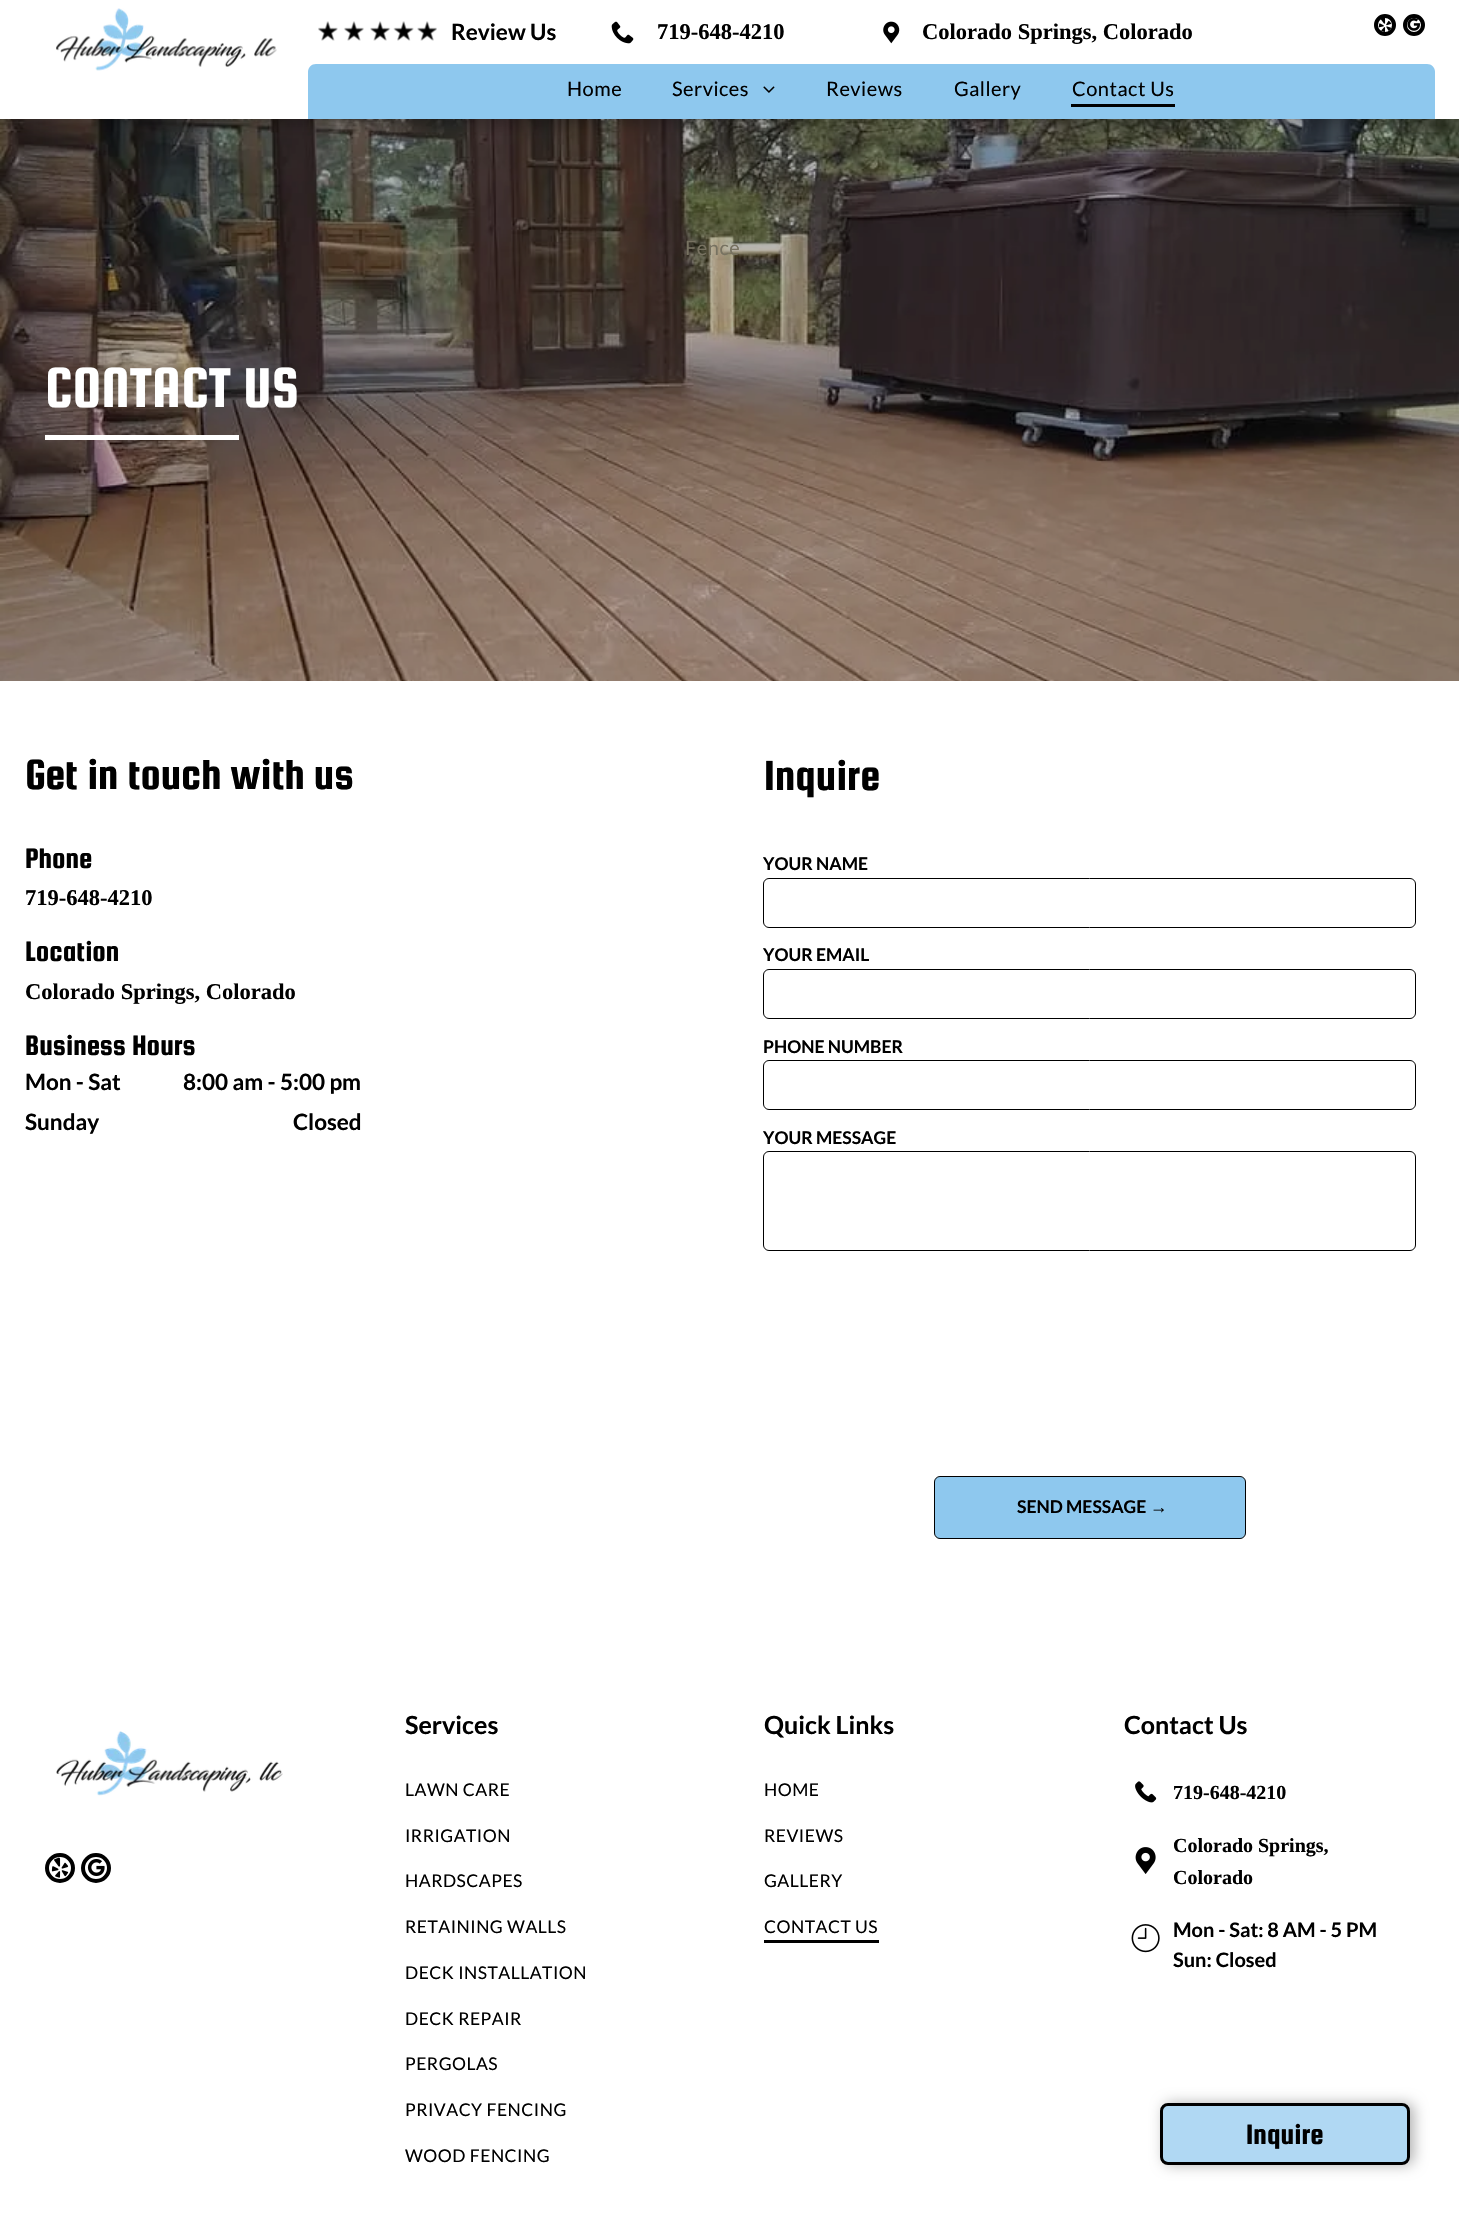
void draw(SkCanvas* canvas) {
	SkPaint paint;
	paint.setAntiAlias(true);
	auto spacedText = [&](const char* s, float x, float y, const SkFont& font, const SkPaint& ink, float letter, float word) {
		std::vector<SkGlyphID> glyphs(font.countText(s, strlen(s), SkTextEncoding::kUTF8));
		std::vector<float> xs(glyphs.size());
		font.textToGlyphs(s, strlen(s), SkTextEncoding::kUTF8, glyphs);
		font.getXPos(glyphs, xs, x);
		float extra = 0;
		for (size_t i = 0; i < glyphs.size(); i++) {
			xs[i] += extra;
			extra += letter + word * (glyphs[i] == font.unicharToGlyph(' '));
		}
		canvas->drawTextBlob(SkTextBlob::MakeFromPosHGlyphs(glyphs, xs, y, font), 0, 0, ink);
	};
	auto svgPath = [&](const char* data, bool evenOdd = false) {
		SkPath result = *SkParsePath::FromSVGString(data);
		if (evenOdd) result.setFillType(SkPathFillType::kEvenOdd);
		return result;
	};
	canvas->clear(0xffffffff);
	canvas->drawImageRect(SkImages::DeferredFromEncodedData(SkData::MakeFromFileName("img8.png")), SkRect::MakeXYWH(0, 119, 1459, 562), SkSamplingOptions());
	paint.setColor(0x40000000);
	paint.setMaskFilter(SkMaskFilter::MakeBlur(kNormal_SkBlurStyle, 7));
	canvas->drawRect(SkRect::MakeXYWH(0, 4, 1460, 119), paint);
	paint.setMaskFilter(nullptr);
	paint.setColor(0xffffffff);
	canvas->drawRect(SkRect::MakeXYWH(0, 0, 1459, 119), paint);
	canvas->drawImageRect(SkImages::DeferredFromEncodedData(SkData::MakeFromFileName("img1.png")), SkRect::MakeXYWH(56, 8, 221, 63), SkSamplingOptions());
	canvas->drawImageRect(SkImages::DeferredFromEncodedData(SkData::MakeFromFileName("img2.png")), SkRect::MakeXYWH(318, 21, 119, 20), SkSamplingOptions());
	SkFont f1(fontMgr->matchFamilyStyle("Lato", SkFontStyle::Bold()), 22.5);
	f1.setSubpixel(true);
	paint.setColor(0xff000000);
	canvas->drawString("Review Us", 451, 40, f1, paint);
	canvas->drawImageRect(SkImages::DeferredFromEncodedData(SkData::MakeFromFileName("img3.png")), SkRect::MakeXYWH(611, 21, 23, 23), SkSamplingOptions());
	SkFont f2(fontMgr->matchFamilyStyle("Liberation Serif", SkFontStyle::Bold()), 22.5);
	f2.setSubpixel(true);
	canvas->drawString("719-648-4210", 657, 39, f2, paint);
	canvas->drawImageRect(SkImages::DeferredFromEncodedData(SkData::MakeFromFileName("img4.png")), SkRect::MakeXYWH(883, 21, 17, 23), SkSamplingOptions());
	canvas->drawString("Colorado Springs, Colorado", 922, 39, f2, paint);
	paint.setStroke(true);
	paint.setStrokeWidth(4);
	canvas->drawCircle(1385, 25, 9, paint);
	canvas->drawImageRect(SkImages::DeferredFromEncodedData(SkData::MakeFromFileName("img5.png")), SkRect::MakeXYWH(1378, 18, 14, 14), SkSamplingOptions());
	canvas->drawCircle(1414, 25, 9, paint);
	canvas->drawImageRect(SkImages::DeferredFromEncodedData(SkData::MakeFromFileName("img6.png")), SkRect::MakeXYWH(1407, 18, 13, 13), SkSamplingOptions());
	paint.setStroke(false);
	paint.setColor(0xff8ec8ee);
	canvas->drawPath(svgPath("M316 64H1427C1431.5 64 1435 67.5 1435 72V119H308V72C308 67.5 311.5 64 316 64Z"), paint);
	SkFont f3(fontMgr->matchFamilyStyle("Lato", SkFontStyle::Normal()), 20);
	f3.setSubpixel(true);
	paint.setColor(0xff000000);
	spacedText("Home", 567, 96, f3, paint, 0.5, 0);
	spacedText("Services", 672, 96, f3, paint, 0.5, 0);
	canvas->drawImageRect(SkImages::DeferredFromEncodedData(SkData::MakeFromFileName("img7.png")), SkRect::MakeXYWH(763, 86, 12, 7), SkSamplingOptions());
	paint.setColor(0xff777261);
	spacedText("Fence", 685, 255, f3, paint, 0.5, 0);
	paint.setColor(0xff000000);
	spacedText("Reviews", 826, 96, f3, paint, 0.5, 0);
	spacedText("Gallery", 954, 96, f3, paint, 0.5, 0);
	spacedText("Contact Us", 1072, 96, f3, paint, 0.5, 0);
	canvas->drawRect(SkRect::MakeXYWH(1071, 104, 104, 3), paint);
	SkFont f4(fontMgr->matchFamilyStyle("Squada One", SkFontStyle::Normal()), 60);
	f4.setSubpixel(true);
	paint.setColor(0xffffffff);
	canvas->drawString("CONTACT US", 45, 407, f4, paint);
	canvas->drawRect(SkRect::MakeXYWH(45, 435, 194, 5), paint);
	SkFont f5(fontMgr->matchFamilyStyle("Squada One", SkFontStyle::Normal()), 45);
	f5.setSubpixel(true);
	paint.setColor(0xff000000);
	canvas->drawString("Get in touch with us", 25, 789, f5, paint);
	SkFont f6(fontMgr->matchFamilyStyle("Squada One", SkFontStyle::Normal()), 30);
	f6.setSubpixel(true);
	canvas->drawString("Phone", 25, 868, f6, paint);
	canvas->drawString("719-648-4210", 25, 905, f2, paint);
	canvas->drawString("Location", 25, 961, f6, paint);
	canvas->drawString("Colorado Springs, Colorado", 25, 999, f2, paint);
	canvas->drawString("Business Hours", 25, 1055, f6, paint);
	canvas->drawString("Mon - Sat", 25, 1090, f1, paint);
	canvas->drawString("8:00 am - 5:00 pm", 183, 1090, f1, paint);
	canvas->drawString("Sunday", 25, 1130, f1, paint);
	canvas->drawString("Closed", 293, 1130, f1, paint);
	canvas->drawString("Inquire", 764, 790, f5, paint);
	SkFont f7(fontMgr->matchFamilyStyle("Lato", SkFontStyle::Bold()), 17.5);
	f7.setSubpixel(true);
	canvas->drawString("YOUR NAME", 763, 870, f7, paint);
	paint.setStroke(true);
	paint.setStrokeWidth(1);
	canvas->drawRoundRect(SkRect::MakeXYWH(763.5, 878.5, 652, 49), 5.5, 5.5, paint);
	paint.setStroke(false);
	canvas->drawString("YOUR EMAIL", 763, 961, f7, paint);
	paint.setStroke(true);
	canvas->drawRoundRect(SkRect::MakeXYWH(763.5, 969.5, 652, 49), 5.5, 5.5, paint);
	paint.setStroke(false);
	canvas->drawString("PHONE NUMBER", 763, 1053, f7, paint);
	paint.setStroke(true);
	canvas->drawRoundRect(SkRect::MakeXYWH(763.5, 1060.5, 652, 49), 5.5, 5.5, paint);
	paint.setStroke(false);
	canvas->drawString("YOUR MESSAGE", 763, 1144, f7, paint);
	paint.setStroke(true);
	canvas->drawRoundRect(SkRect::MakeXYWH(763.5, 1151.5, 652, 99), 5.5, 5.5, paint);
	paint.setStroke(false);
	paint.setColor(0xff8ec8ee);
	canvas->drawRoundRect(SkRect::MakeXYWH(934.5, 1476.5, 311, 62), 5.5, 5.5, paint);
	paint.setStroke(true);
	paint.setColor(0xff000000);
	canvas->drawRoundRect(SkRect::MakeXYWH(934.5, 1476.5, 311, 62), 5.5, 5.5, paint);
	paint.setStroke(false);
	canvas->drawString("SEND MESSAGE", 1017, 1513, f7, paint);
	SkFont f8(fontMgr->matchFamilyStyle("Liberation Serif", SkFontStyle::Bold()), 17.5);
	f8.setSubpixel(true);
	canvas->drawString("→", 1150, 1513, f8, paint);
	canvas->drawImageRect(SkImages::DeferredFromEncodedData(SkData::MakeFromFileName("img9.png")), SkRect::MakeXYWH(56, 1731, 227, 65), SkSamplingOptions());
	paint.setStroke(true);
	paint.setStrokeWidth(4);
	canvas->drawCircle(60, 1868, 13, paint);
	canvas->drawImageRect(SkImages::DeferredFromEncodedData(SkData::MakeFromFileName("img10.png")), SkRect::MakeXYWH(51, 1857, 18, 21), SkSamplingOptions());
	canvas->drawCircle(96, 1868, 13, paint);
	canvas->drawImageRect(SkImages::DeferredFromEncodedData(SkData::MakeFromFileName("img11.png")), SkRect::MakeXYWH(87, 1859, 18, 17), SkSamplingOptions());
	SkFont f9(fontMgr->matchFamilyStyle("Lato", SkFontStyle::Bold()), 25);
	f9.setSubpixel(true);
	paint.setStroke(false);
	canvas->drawString("Services", 405, 1734, f9, paint);
	SkFont f10(fontMgr->matchFamilyStyle("Lato", SkFontStyle::Normal()), 17.5);
	f10.setSubpixel(true);
	spacedText("LAWN CARE", 405, 1796, f10, paint, 0.5, 0);
	spacedText("IRRIGATION", 405, 1842, f10, paint, 0.5, 0);
	spacedText("HARDSCAPES", 405, 1887, f10, paint, 0.5, 0);
	spacedText("RETAINING WALLS", 405, 1933, f10, paint, 0.5, 0);
	spacedText("DECK INSTALLATION", 405, 1979, f10, paint, 0.5, 0);
	spacedText("DECK REPAIR", 405, 2025, f10, paint, 0.5, 0);
	spacedText("PERGOLAS", 405, 2070, f10, paint, 0.5, 0);
	spacedText("PRIVACY FENCING", 405, 2116, f10, paint, 0.5, 0);
	spacedText("WOOD FENCING", 405, 2162, f10, paint, 0.5, 0);
	canvas->drawString("Quick Links", 764, 1734, f9, paint);
	spacedText("HOME", 764, 1796, f10, paint, 0.5, 0);
	spacedText("REVIEWS", 764, 1842, f10, paint, 0.5, 0);
	spacedText("GALLERY", 764, 1887, f10, paint, 0.5, 0);
	spacedText("CONTACT US", 764, 1933, f10, paint, 0.5, 0);
	canvas->drawRect(SkRect::MakeXYWH(764, 1940, 115, 3), paint);
	canvas->drawString("Contact Us", 1124, 1734, f9, paint);
	canvas->drawImageRect(SkImages::DeferredFromEncodedData(SkData::MakeFromFileName("img12.png")), SkRect::MakeXYWH(1135, 1781, 22, 22), SkSamplingOptions());
	SkFont f11(fontMgr->matchFamilyStyle("Liberation Serif", SkFontStyle::Bold()), 20);
	f11.setSubpixel(true);
	canvas->drawString("719-648-4210", 1173, 1799, f11, paint);
	canvas->drawImageRect(SkImages::DeferredFromEncodedData(SkData::MakeFromFileName("img13.png")), SkRect::MakeXYWH(1135, 1847, 21, 27), SkSamplingOptions());
	canvas->drawString("Colorado Springs,", 1173, 1852, f11, paint);
	canvas->drawString("Colorado", 1173, 1884, f11, paint);
	canvas->drawImageRect(SkImages::DeferredFromEncodedData(SkData::MakeFromFileName("img14.png")), SkRect::MakeXYWH(1131, 1924, 29, 29), SkSamplingOptions());
	SkFont f12(fontMgr->matchFamilyStyle("Lato", SkFontStyle::Bold()), 20);
	f12.setSubpixel(true);
	canvas->drawString("Mon - Sat: 8 AM - 5 PM", 1173, 1937, f12, paint);
	canvas->drawString("Sun: Closed", 1173, 1967, f12, paint);
	canvas->save();
	canvas->clipPath(svgPath("M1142 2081H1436V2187H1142ZM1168 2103H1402C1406.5 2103 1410 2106.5 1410 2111V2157C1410 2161.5 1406.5 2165 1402 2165H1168C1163.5 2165 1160 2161.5 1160 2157V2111C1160 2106.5 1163.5 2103 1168 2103Z", true), true);
	paint.setColor(0x4d000000);
	paint.setMaskFilter(SkMaskFilter::MakeBlur(kNormal_SkBlurStyle, 7));
	canvas->drawRoundRect(SkRect::MakeXYWH(1164, 2103, 250, 62), 8, 8, paint);
	paint.setMaskFilter(nullptr);
	canvas->restore();
	paint.setColor(0xb38ec8ee);
	canvas->drawRoundRect(SkRect::MakeXYWH(1161.5, 2104.5, 247, 59), 6.5, 6.5, paint);
	paint.setStroke(true);
	paint.setStrokeWidth(3);
	paint.setColor(0xff000000);
	canvas->drawRoundRect(SkRect::MakeXYWH(1161.5, 2104.5, 247, 59), 6.5, 6.5, paint);
	paint.setStroke(false);
	canvas->drawString("Inquire", 1246, 2144, f6, paint);
}
